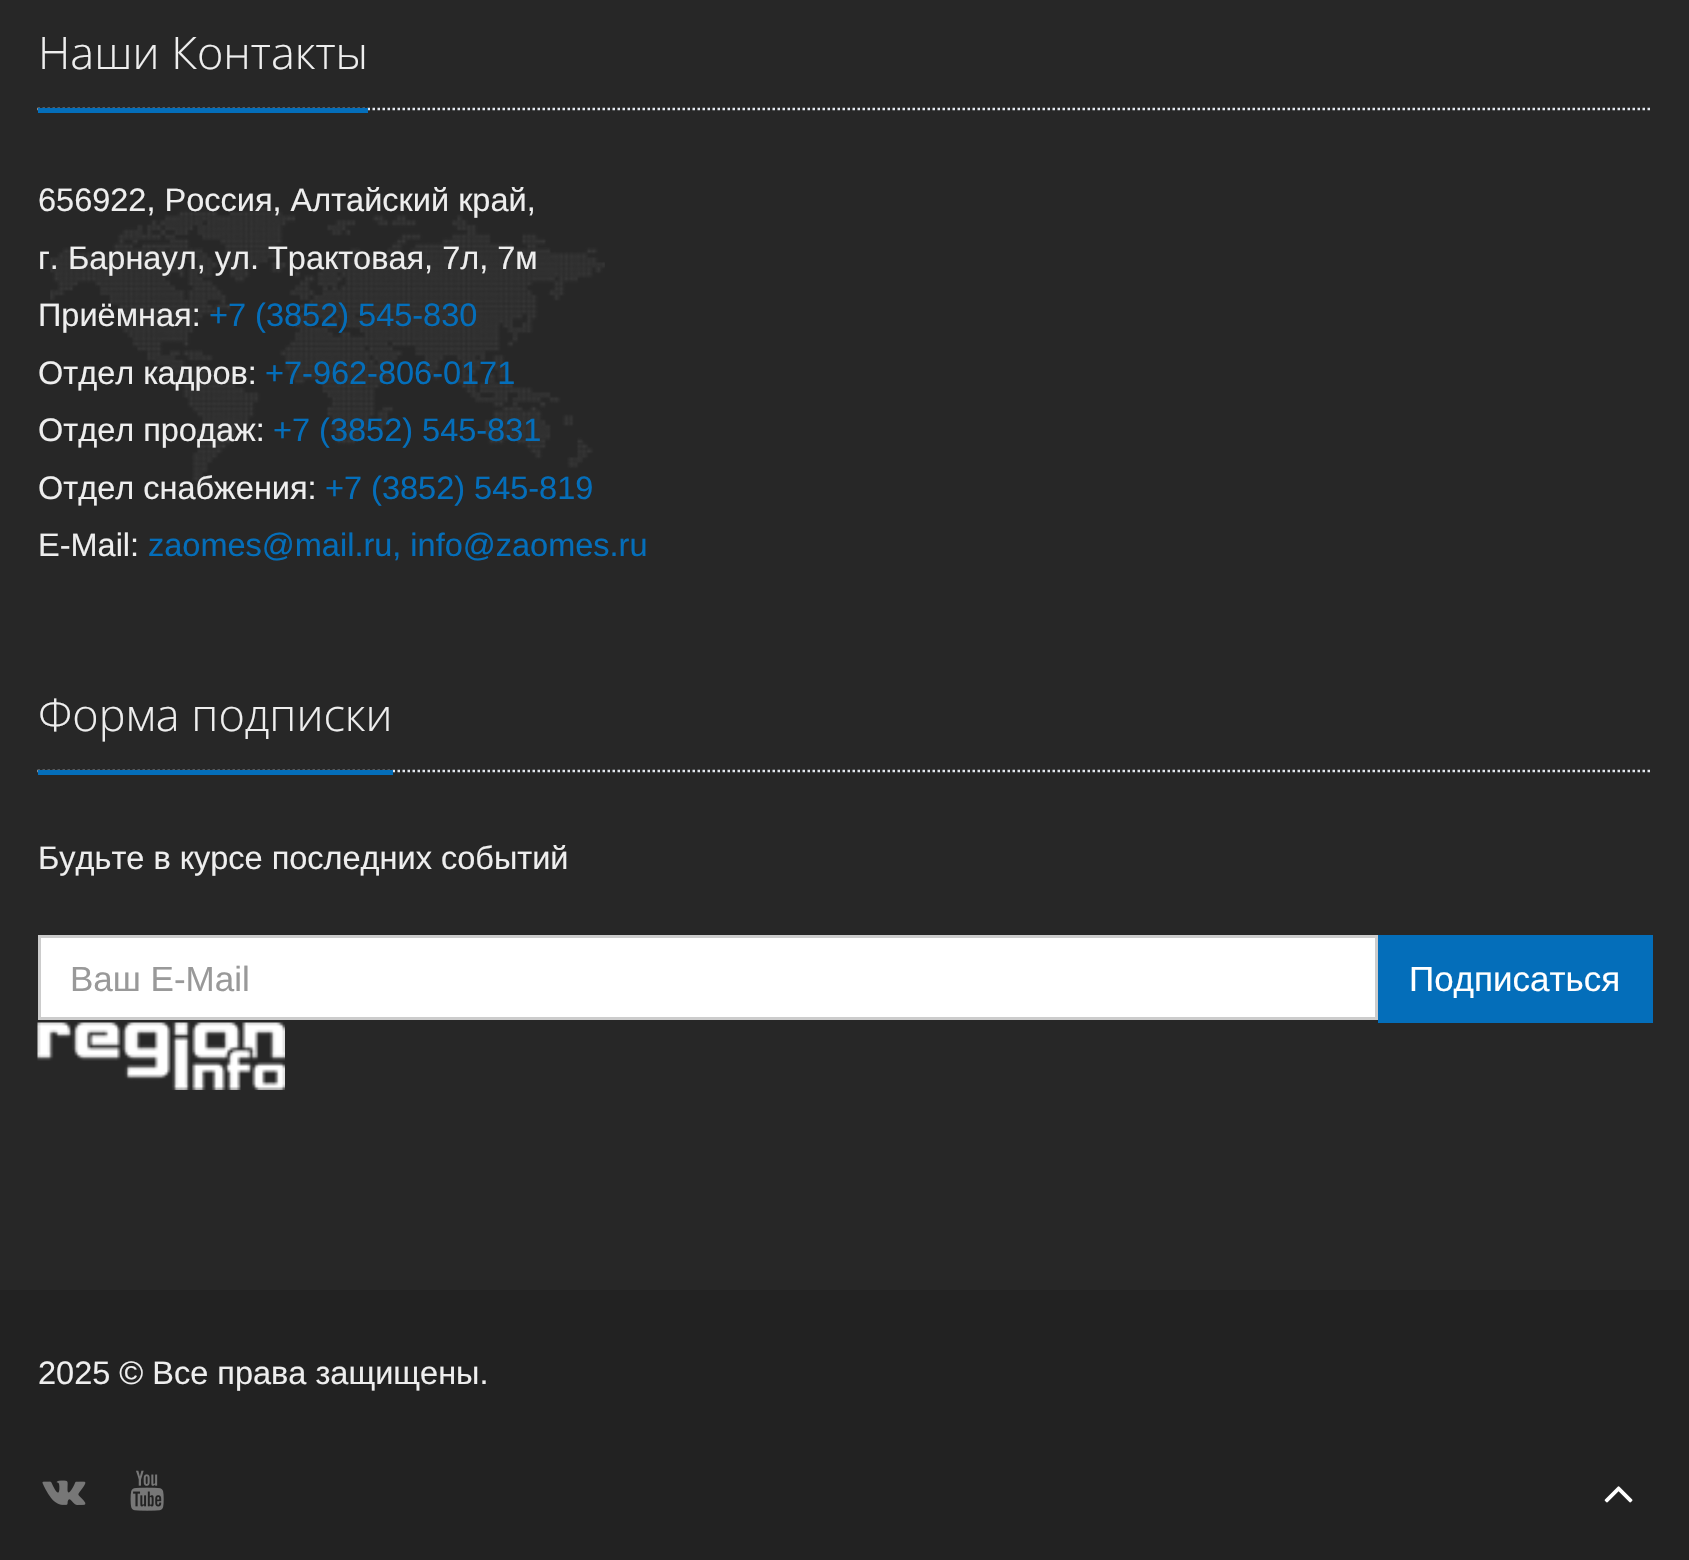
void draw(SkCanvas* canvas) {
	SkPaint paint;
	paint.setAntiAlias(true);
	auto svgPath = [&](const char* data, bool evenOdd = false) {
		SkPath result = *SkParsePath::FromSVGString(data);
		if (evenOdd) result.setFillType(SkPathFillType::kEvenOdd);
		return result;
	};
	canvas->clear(0xff272727);
	canvas->drawImageRect(SkImages::DeferredFromEncodedData(SkData::MakeFromFileName("img1.png")), SkRect::MakeXYWH(50, 207, 555, 279), SkSamplingOptions());
	paint.setStroke(true);
	paint.setStrokeWidth(2.5);
	paint.setColor(0xffe4e9f0);
	paint.setPathEffect(SkDashPathEffect::Make({{2.5f, 2.5f}}, 0));
	canvas->drawPath(svgPath("M37.5 109H1652.5"), paint);
	paint.setPathEffect(nullptr);
	paint.setStroke(false);
	paint.setColor(0xff046eba);
	canvas->drawRect(SkRect::MakeXYWH(38, 108, 330, 5), paint);
	SkFont f1(fontMgr->matchFamilyStyle("Open Sans", SkFontStyle(300, SkFontStyle::kNormal_Width, SkFontStyle::kUpright_Slant)), 45);
	f1.setSubpixel(true);
	paint.setColor(0xffeeeeee);
	canvas->drawString("Наши Контакты", 38, 69, f1, paint);
	SkFont f2(fontMgr->matchFamilyStyle("Liberation Sans", SkFontStyle::Normal()), 32.5);
	f2.setSubpixel(true);
	canvas->drawString("656922, Россия, Алтайский край,", 38, 211, f2, paint);
	canvas->drawString("г. Барнаул, ул. Трактовая, 7л, 7м", 38, 269, f2, paint);
	canvas->drawString("Приёмная:", 38, 326, f2, paint);
	paint.setColor(0xff046eba);
	canvas->drawString("+7 (3852) 545-830", 209, 326, f2, paint);
	paint.setColor(0xffeeeeee);
	canvas->drawString("Отдел кадров:", 38, 384, f2, paint);
	paint.setColor(0xff046eba);
	canvas->drawString("+7-962-806-0171", 265, 384, f2, paint);
	paint.setColor(0xffeeeeee);
	canvas->drawString("Отдел продаж:", 38, 441, f2, paint);
	paint.setColor(0xff046eba);
	canvas->drawString("+7 (3852) 545-831", 273, 441, f2, paint);
	paint.setColor(0xffeeeeee);
	canvas->drawString("Отдел снабжения:", 38, 499, f2, paint);
	paint.setColor(0xff046eba);
	canvas->drawString("+7 (3852) 545-819", 325, 499, f2, paint);
	paint.setColor(0xffeeeeee);
	canvas->drawString("E-Mail:", 38, 556, f2, paint);
	paint.setColor(0xff046eba);
	canvas->drawString("zaomes@mail.ru, info@zaomes.ru", 148, 556, f2, paint);
	paint.setStroke(true);
	paint.setColor(0xffe4e9f0);
	paint.setPathEffect(SkDashPathEffect::Make({{2.5f, 2.5f}}, 0));
	canvas->drawPath(svgPath("M37.5 771H1652.5"), paint);
	paint.setPathEffect(nullptr);
	paint.setStroke(false);
	paint.setColor(0xff046eba);
	canvas->drawRect(SkRect::MakeXYWH(38, 770, 355, 5), paint);
	paint.setColor(0xffeeeeee);
	canvas->drawString("Форма подписки", 38, 731, f1, paint);
	canvas->drawString("Будьте в курсе последних событий", 38, 869, f2, paint);
	paint.setColor(0xffffffff);
	canvas->drawRect(SkRect::MakeXYWH(39.5, 936.5, 1337, 82), paint);
	paint.setStroke(true);
	paint.setStrokeWidth(3);
	paint.setColor(0xffcccccc);
	canvas->drawRect(SkRect::MakeXYWH(39.5, 936.5, 1337, 82), paint);
	SkFont f3(fontMgr->matchFamilyStyle("Liberation Sans", SkFontStyle::Normal()), 35);
	f3.setSubpixel(true);
	paint.setStroke(false);
	paint.setColor(0xff999999);
	canvas->drawString("Ваш E-Mail", 70, 991, f3, paint);
	paint.setColor(0xff046eba);
	canvas->drawRect(SkRect::MakeXYWH(1378, 935, 275, 88), paint);
	paint.setColor(0xffffffff);
	canvas->drawString("Подписаться", 1409, 991, f3, paint);
	canvas->drawImageRect(SkImages::DeferredFromEncodedData(SkData::MakeFromFileName("img2.png")), SkRect::MakeXYWH(37, 1022, 248, 68), SkSamplingOptions());
	paint.setColor(0xff222222);
	canvas->drawRect(SkRect::MakeXYWH(0, 1290, 1689, 270), paint);
	paint.setColor(0xffeeeeee);
	canvas->drawString("2025 © Все права защищены.", 38, 1384, f2, paint);
	canvas->drawImageRect(SkImages::DeferredFromEncodedData(SkData::MakeFromFileName("img3.png")), SkRect::MakeXYWH(42, 1480, 44, 25), SkSamplingOptions());
	canvas->drawImageRect(SkImages::DeferredFromEncodedData(SkData::MakeFromFileName("img4.png")), SkRect::MakeXYWH(130, 1470, 34, 41), SkSamplingOptions());
	canvas->drawImageRect(SkImages::DeferredFromEncodedData(SkData::MakeFromFileName("img5.png")), SkRect::MakeXYWH(1604, 1486, 29, 17), SkSamplingOptions());
}
